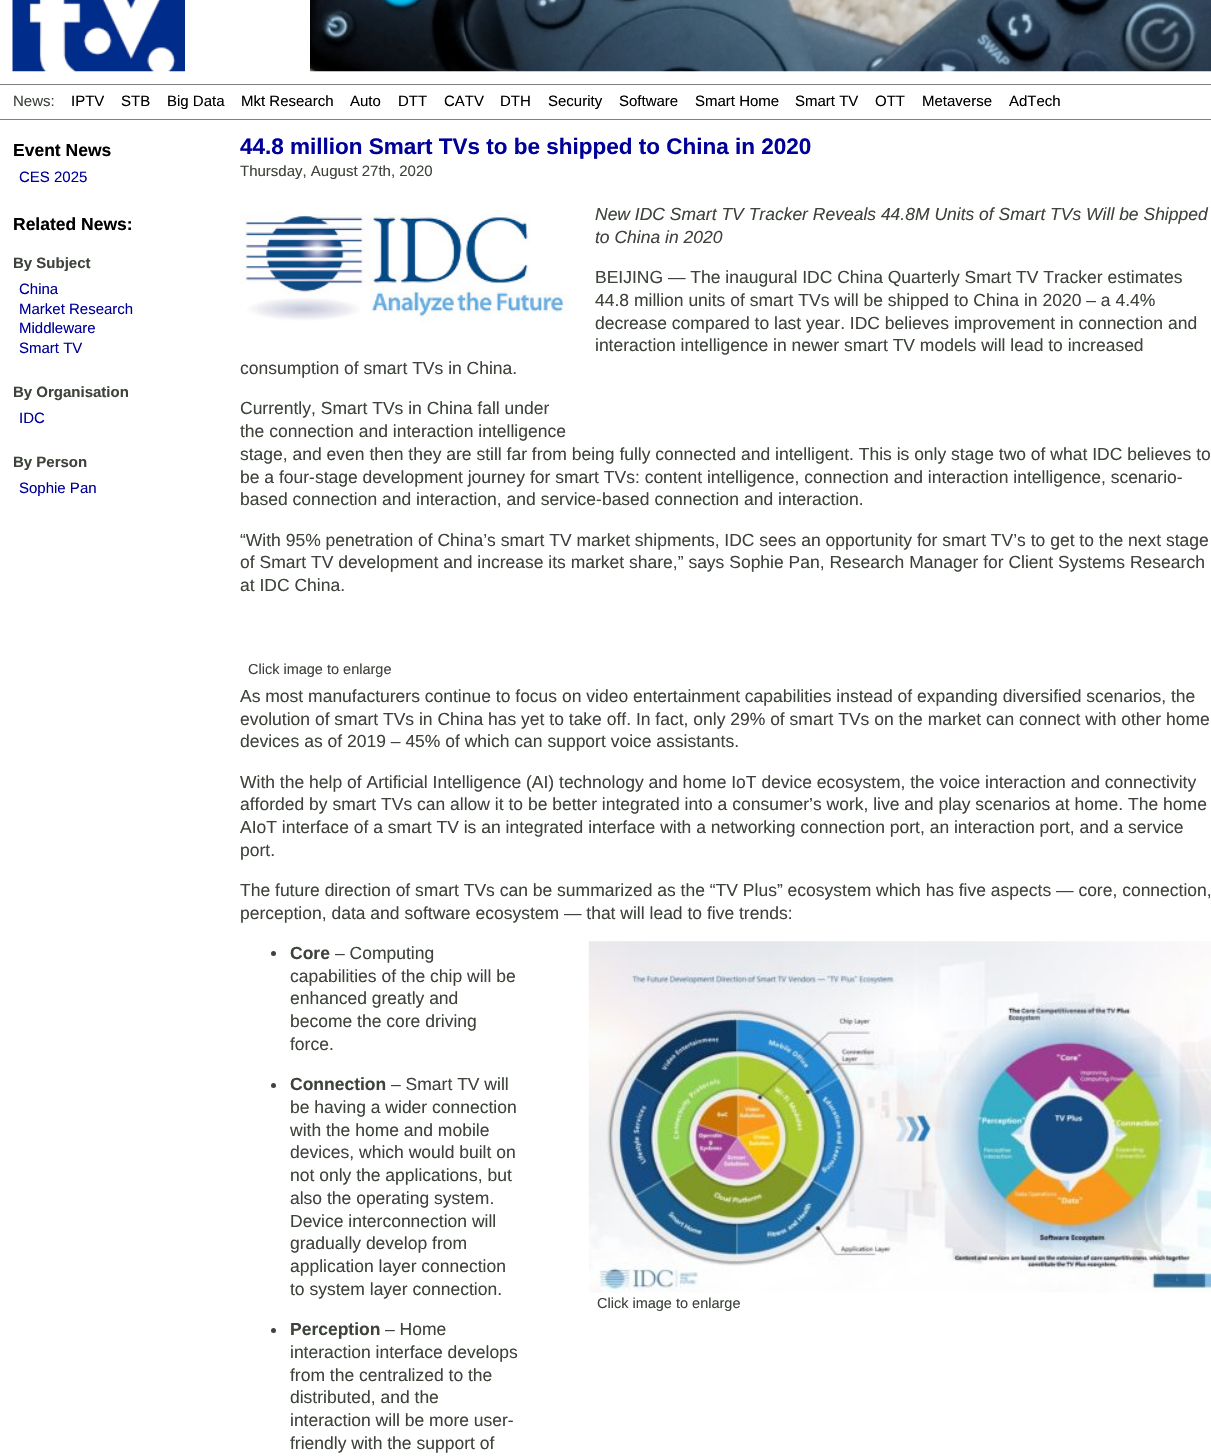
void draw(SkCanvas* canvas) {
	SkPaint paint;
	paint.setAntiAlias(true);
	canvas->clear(0xffffffff);
	canvas->drawImageRect(SkImages::DeferredFromEncodedData(SkData::MakeFromFileName("img1.png")), SkRect::MakeXYWH(12, 0, 173, 72), SkSamplingOptions());
	canvas->drawImageRect(SkImages::DeferredFromEncodedData(SkData::MakeFromFileName("img2.png")), SkRect::MakeXYWH(310, 0, 901, 72), SkSamplingOptions());
	paint.setColor(0xff808080);
	canvas->drawRect(SkRect::MakeXYWH(0, 84, 1211, 1), paint);
	canvas->drawRect(SkRect::MakeXYWH(0, 119, 1211, 1), paint);
	SkFont f1(fontMgr->matchFamilyStyle("Liberation Sans", SkFontStyle::Normal()), 15);
	f1.setSubpixel(true);
	paint.setColor(0xff3e443c);
	canvas->drawString("News:", 13, 106, f1, paint);
	paint.setColor(0xff000000);
	canvas->drawString("IPTV", 71, 106, f1, paint);
	canvas->drawString("STB", 121, 106, f1, paint);
	canvas->drawString("Big Data", 167, 106, f1, paint);
	canvas->drawString("Mkt Research", 241, 106, f1, paint);
	canvas->drawString("Auto", 350, 106, f1, paint);
	canvas->drawString("DTT", 398, 106, f1, paint);
	canvas->drawString("CATV", 444, 106, f1, paint);
	canvas->drawString("DTH", 500, 106, f1, paint);
	canvas->drawString("Security", 548, 106, f1, paint);
	canvas->drawString("Software", 619, 106, f1, paint);
	canvas->drawString("Smart Home", 695, 106, f1, paint);
	canvas->drawString("Smart TV", 795, 106, f1, paint);
	canvas->drawString("OTT", 875, 106, f1, paint);
	canvas->drawString("Metaverse", 922, 106, f1, paint);
	canvas->drawString("AdTech", 1009, 106, f1, paint);
	SkFont f2(fontMgr->matchFamilyStyle("Liberation Sans", SkFontStyle::Bold()), 17.5);
	f2.setSubpixel(true);
	canvas->drawString("Event News", 13, 156, f2, paint);
	paint.setColor(0xff000099);
	canvas->drawString("CES 2025", 19, 182, f1, paint);
	paint.setColor(0xff000000);
	canvas->drawString("Related News:", 13, 230, f2, paint);
	SkFont f3(fontMgr->matchFamilyStyle("Liberation Sans", SkFontStyle::Bold()), 15);
	f3.setSubpixel(true);
	paint.setColor(0xff3e443c);
	canvas->drawString("By Subject", 13, 268, f3, paint);
	paint.setColor(0xff000099);
	canvas->drawString("China", 19, 294, f1, paint);
	canvas->drawString("Market Research", 19, 314, f1, paint);
	canvas->drawString("Middleware", 19, 333, f1, paint);
	canvas->drawString("Smart TV", 19, 353, f1, paint);
	paint.setColor(0xff3e443c);
	canvas->drawString("By Organisation", 13, 397, f3, paint);
	paint.setColor(0xff000099);
	canvas->drawString("IDC", 19, 423, f1, paint);
	paint.setColor(0xff3e443c);
	canvas->drawString("By Person", 13, 467, f3, paint);
	paint.setColor(0xff000099);
	canvas->drawString("Sophie Pan", 19, 493, f1, paint);
	SkFont f4(fontMgr->matchFamilyStyle("Liberation Sans", SkFontStyle::Bold()), 22.5);
	f4.setSubpixel(true);
	canvas->drawString("44.8 million Smart TVs to be shipped to China in 2020", 240, 154, f4, paint);
	paint.setColor(0xff3e443c);
	canvas->drawString("Thursday, August 27th, 2020", 240, 176, f1, paint);
	SkFont f5(fontMgr->matchFamilyStyle("Liberation Sans", SkFontStyle::Italic()), 17.5);
	f5.setSubpixel(true);
	canvas->drawString("New IDC Smart TV Tracker Reveals 44.8M Units of Smart TVs Will be Shipped", 595, 220, f5, paint);
	canvas->drawString("to China in 2020", 595, 243, f5, paint);
	SkFont f6(fontMgr->matchFamilyStyle("Liberation Sans", SkFontStyle::Normal()), 17.5);
	f6.setSubpixel(true);
	canvas->drawString("BEIJING — The inaugural IDC China Quarterly Smart TV Tracker estimates", 595, 283, f6, paint);
	canvas->drawString("44.8 million units of smart TVs will be shipped to China in 2020 – a 4.4%", 595, 306, f6, paint);
	canvas->drawString("decrease compared to last year. IDC believes improvement in connection and", 595, 329, f6, paint);
	canvas->drawString("interaction intelligence in newer smart TV models will lead to increased", 595, 351, f6, paint);
	canvas->drawString("consumption of smart TVs in China.", 240, 374, f6, paint);
	canvas->drawString("Currently, Smart TVs in China fall under", 240, 414, f6, paint);
	canvas->drawString("the connection and interaction intelligence", 240, 437, f6, paint);
	canvas->drawString("stage, and even then they are still far from being fully connected and intelligent. This is only stage two of what IDC believes to", 240, 460, f6, paint);
	canvas->drawString("be a four-stage development journey for smart TVs: content intelligence, connection and interaction intelligence, scenario-", 240, 483, f6, paint);
	canvas->drawString("based connection and interaction, and service-based connection and interaction.", 240, 505, f6, paint);
	canvas->drawString("“With 95% penetration of China’s smart TV market shipments, IDC sees an opportunity for smart TV’s to get to the next stage", 240, 546, f6, paint);
	canvas->drawString("of Smart TV development and increase its market share,” says Sophie Pan, Research Manager for Client Systems Research", 240, 568, f6, paint);
	canvas->drawString("at IDC China.", 240, 591, f6, paint);
	SkFont f7(fontMgr->matchFamilyStyle("Liberation Sans", SkFontStyle::Normal()), 14.5);
	f7.setSubpixel(true);
	canvas->drawString("Click image to enlarge", 248, 674, f7, paint);
	canvas->drawString("As most manufacturers continue to focus on video entertainment capabilities instead of expanding diversified scenarios, the", 240, 702, f6, paint);
	canvas->drawString("evolution of smart TVs in China has yet to take off. In fact, only 29% of smart TVs on the market can connect with other home", 240, 725, f6, paint);
	canvas->drawString("devices as of 2019 – 45% of which can support voice assistants.", 240, 747, f6, paint);
	canvas->drawString("With the help of Artificial Intelligence (AI) technology and home IoT device ecosystem, the voice interaction and connectivity", 240, 788, f6, paint);
	canvas->drawString("afforded by smart TVs can allow it to be better integrated into a consumer’s work, live and play scenarios at home. The home", 240, 810, f6, paint);
	canvas->drawString("AIoT interface of a smart TV is an integrated interface with a networking connection port, an interaction port, and a service", 240, 833, f6, paint);
	canvas->drawString("port.", 240, 856, f6, paint);
	canvas->drawString("The future direction of smart TVs can be summarized as the “TV Plus” ecosystem which has five aspects ― core, connection,", 240, 896, f6, paint);
	canvas->drawString("perception, data and software ecosystem ― that will lead to five trends:", 240, 919, f6, paint);
	canvas->drawCircle(273.5, 953.5, 2.5, paint);
	canvas->drawString("Core", 290, 959, f2, paint);
	canvas->drawString("– Computing", 335, 959, f6, paint);
	canvas->drawString("capabilities of the chip will be", 290, 982, f6, paint);
	canvas->drawString("enhanced greatly and", 290, 1004, f6, paint);
	canvas->drawString("become the core driving", 290, 1027, f6, paint);
	canvas->drawString("force.", 290, 1050, f6, paint);
	canvas->drawCircle(273.5, 1085.5, 2.5, paint);
	canvas->drawString("Connection", 290, 1090, f2, paint);
	canvas->drawString("– Smart TV will", 391, 1090, f6, paint);
	canvas->drawString("be having a wider connection", 290, 1113, f6, paint);
	canvas->drawString("with the home and mobile", 290, 1136, f6, paint);
	canvas->drawString("devices, which would built on", 290, 1158, f6, paint);
	canvas->drawString("not only the applications, but", 290, 1181, f6, paint);
	canvas->drawString("also the operating system.", 290, 1204, f6, paint);
	canvas->drawString("Device interconnection will", 290, 1227, f6, paint);
	canvas->drawString("gradually develop from", 290, 1249, f6, paint);
	canvas->drawString("application layer connection", 290, 1272, f6, paint);
	canvas->drawString("to system layer connection.", 290, 1295, f6, paint);
	canvas->drawImageRect(SkImages::DeferredFromEncodedData(SkData::MakeFromFileName("img3.png")), SkRect::MakeXYWH(588, 941, 623, 352), SkSamplingOptions());
	canvas->drawString("Click image to enlarge", 597, 1308, f7, paint);
	canvas->drawCircle(273.5, 1330.5, 2.5, paint);
	canvas->drawString("Perception", 290, 1335, f2, paint);
	canvas->drawString("– Home", 385, 1335, f6, paint);
	canvas->drawString("interaction interface develops", 290, 1358, f6, paint);
	canvas->drawString("from the centralized to the", 290, 1381, f6, paint);
	canvas->drawString("distributed, and the", 290, 1403, f6, paint);
	canvas->drawString("interaction will be more user-", 290, 1426, f6, paint);
	canvas->drawString("friendly with the support of", 290, 1449, f6, paint);
	canvas->drawImageRect(SkImages::DeferredFromEncodedData(SkData::MakeFromFileName("img4.png")), SkRect::MakeXYWH(240, 214, 330, 110), SkSamplingOptions());
}
